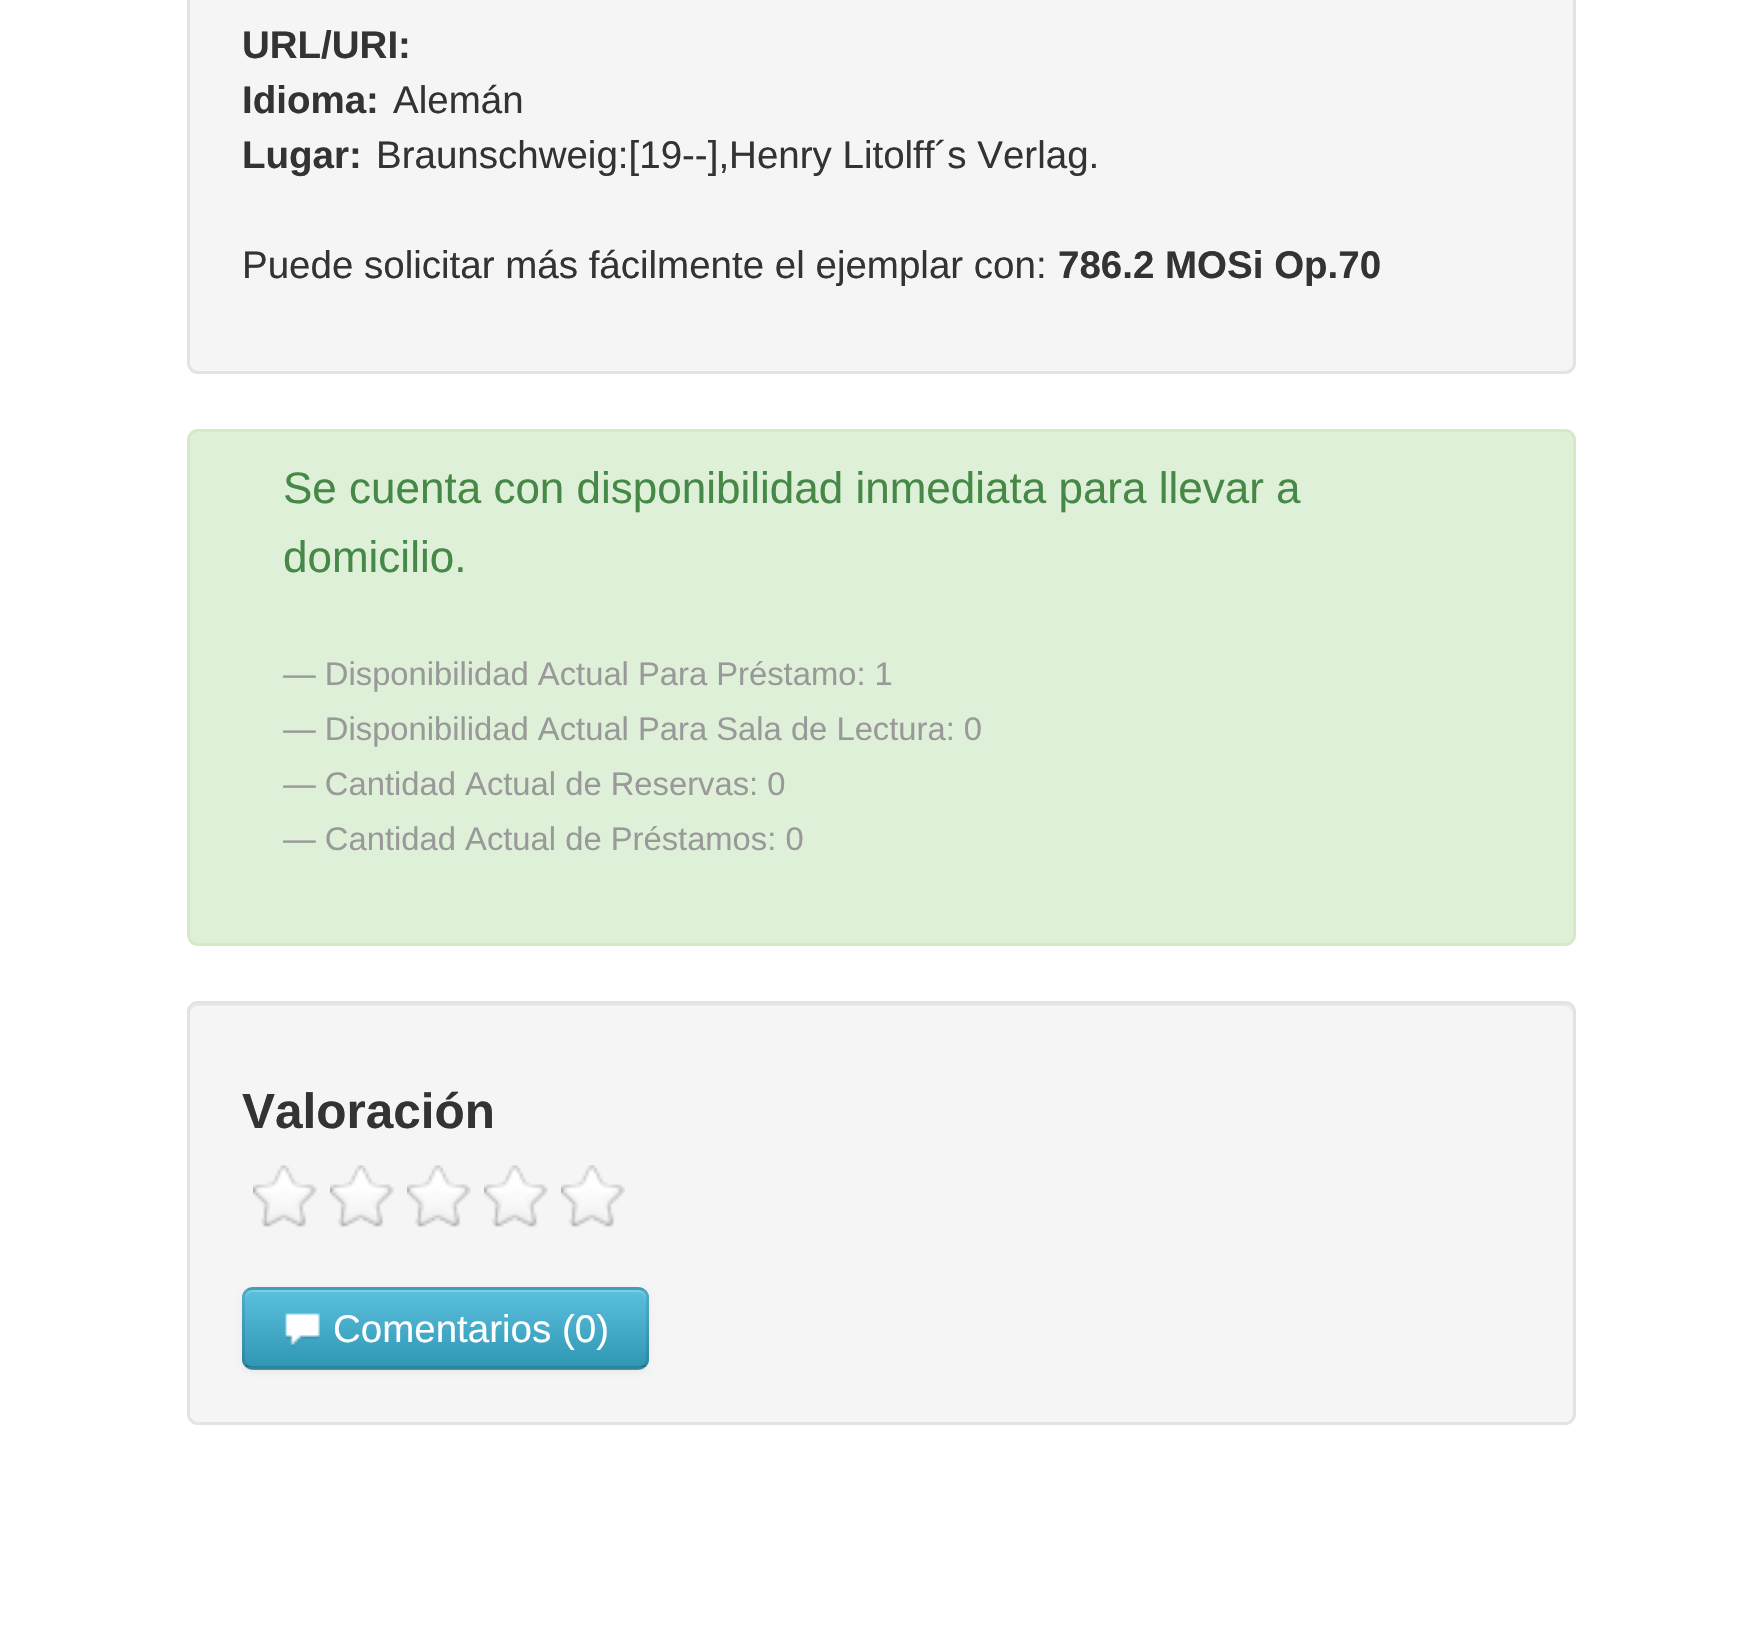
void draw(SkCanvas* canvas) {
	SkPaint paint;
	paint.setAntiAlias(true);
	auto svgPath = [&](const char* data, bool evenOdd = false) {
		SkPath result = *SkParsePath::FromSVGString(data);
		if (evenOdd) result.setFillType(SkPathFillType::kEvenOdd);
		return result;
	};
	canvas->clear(0xffffffff);
	paint.setColor(0xfff5f5f5);
	canvas->drawRoundRect(SkRect::MakeXYWH(188.5, -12.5, 1386, 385), 9.5, 9.5, paint);
	paint.setStroke(true);
	paint.setStrokeWidth(3);
	paint.setColor(0xffe3e3e3);
	canvas->drawRoundRect(SkRect::MakeXYWH(188.5, -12.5, 1386, 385), 9.5, 9.5, paint);
	SkFont f1(fontMgr->matchFamilyStyle("Liberation Sans", SkFontStyle::Bold()), 38.5);
	f1.setSubpixel(true);
	paint.setStroke(false);
	paint.setColor(0xff333333);
	canvas->drawString("URL/URI:", 242, 58, f1, paint);
	canvas->drawString("Idioma:", 242, 113, f1, paint);
	SkFont f2(fontMgr->matchFamilyStyle("Liberation Sans", SkFontStyle::Normal()), 38.5);
	f2.setSubpixel(true);
	canvas->drawString("Alemán", 393, 113, f2, paint);
	canvas->drawString("Lugar:", 242, 168, f1, paint);
	canvas->drawString("Braunschweig:[19--],Henry Litolff´s Verlag.", 376, 168, f2, paint);
	canvas->drawString("Puede solicitar más fácilmente el ejemplar con:", 242, 278, f2, paint);
	canvas->drawString("786.2 MOSi Op.70", 1058, 278, f1, paint);
	paint.setColor(0xffdff0d8);
	canvas->drawRoundRect(SkRect::MakeXYWH(188.5, 430.5, 1386, 514), 9.5, 9.5, paint);
	paint.setStroke(true);
	paint.setColor(0xffd6e9c6);
	canvas->drawRoundRect(SkRect::MakeXYWH(188.5, 430.5, 1386, 514), 9.5, 9.5, paint);
	SkFont f3(fontMgr->matchFamilyStyle("Liberation Sans", SkFontStyle::Normal()), 44);
	f3.setSubpixel(true);
	paint.setStroke(false);
	paint.setColor(0xff468847);
	canvas->drawString("Se cuenta con disponibilidad inmediata para llevar a", 283, 503, f3, paint);
	canvas->drawString("domicilio.", 283, 572, f3, paint);
	SkFont f4(fontMgr->matchFamilyStyle("Liberation Sans", SkFontStyle::Normal()), 32.75);
	f4.setSubpixel(true);
	paint.setColor(0xff999999);
	canvas->drawString("— Disponibilidad Actual Para Préstamo: 1", 283, 685, f4, paint);
	canvas->drawString("— Disponibilidad Actual Para Sala de Lectura: 0", 283, 740, f4, paint);
	canvas->drawString("— Cantidad Actual de Reservas: 0", 283, 795, f4, paint);
	canvas->drawString("— Cantidad Actual de Préstamos: 0", 283, 850, f4, paint);
	paint.setColor(0xfff5f5f5);
	canvas->drawRoundRect(SkRect::MakeXYWH(187, 1001, 1389, 424), 11, 11, paint);
	paint.setColor(0xffe9e9e9);
	canvas->drawPath(svgPath("M198 1006H1565C1569 1006 1573 1010 1573 1015V1012C1573 1008 1569 1004 1565 1004H198C194 1004 190 1008 190 1012V1015C190 1010 193 1006 198 1006Z"), paint);
	paint.setStroke(true);
	paint.setColor(0xffe3e3e3);
	canvas->drawRoundRect(SkRect::MakeXYWH(188.5, 1002.5, 1386, 421), 9.5, 9.5, paint);
	SkFont f5(fontMgr->matchFamilyStyle("Liberation Sans", SkFontStyle::Bold()), 49.5);
	f5.setSubpixel(true);
	paint.setStroke(false);
	paint.setColor(0xff333333);
	canvas->drawString("Valoración", 242, 1128, f5, paint);
	canvas->drawImageRect(SkImages::DeferredFromEncodedData(SkData::MakeFromFileName("img1.png")), SkRect::MakeXYWH(253, 1165, 64, 62), SkSamplingOptions());
	canvas->drawImageRect(SkImages::DeferredFromEncodedData(SkData::MakeFromFileName("img2.png")), SkRect::MakeXYWH(330, 1165, 64, 62), SkSamplingOptions());
	canvas->drawImageRect(SkImages::DeferredFromEncodedData(SkData::MakeFromFileName("img1.png")), SkRect::MakeXYWH(407, 1165, 64, 62), SkSamplingOptions());
	canvas->drawImageRect(SkImages::DeferredFromEncodedData(SkData::MakeFromFileName("img3.png")), SkRect::MakeXYWH(484, 1165, 64, 62), SkSamplingOptions());
	canvas->drawImageRect(SkImages::DeferredFromEncodedData(SkData::MakeFromFileName("img2.png")), SkRect::MakeXYWH(561, 1165, 64, 62), SkSamplingOptions());
	paint.setColor(0x0d000000);
	paint.setMaskFilter(SkMaskFilter::MakeBlur(kNormal_SkBlurStyle, 3));
	canvas->drawRoundRect(SkRect::MakeXYWH(242, 1290, 407, 82), 11, 11, paint);
	paint.setMaskFilter(nullptr);
	paint.setColor(0xff49afcd);
	canvas->drawRoundRect(SkRect::MakeXYWH(242, 1287, 407, 83), 11, 11, paint);
	canvas->save();
	canvas->clipPath(svgPath("M253 1287H638C644 1287 649 1292 649 1298V1359C649 1365 644 1370 638 1370H253C247 1370 242 1365 242 1359V1298C242 1292 247 1287 253 1287Z"), true);
	{
		const SkColor colors[] = {0xff5bc0de, 0xff2f96b4};
		const float stops[] = {0, 1};
		const SkPoint ends[] = {{446, 1290}, {446, 1367}};
		paint.setShader(SkGradientShader::MakeLinear(ends, colors, stops, 2, SkTileMode::kClamp));
		paint.setAlpha(255);
	}
	canvas->drawRect(SkRect::MakeXYWH(242, 1290, 407, 77), paint);
	canvas->restore();
	paint.setShader(nullptr);
	paint.setColor(0x33ffffff);
	canvas->drawPath(svgPath("M253 1292H638C643 1292 646 1296 646 1301V1298C646 1294 642 1290 638 1290H253C249 1290 245 1294 245 1298V1301C245 1296 248 1292 253 1292Z"), paint);
	paint.setStroke(true);
	paint.setStrokeWidth(2.8);
	paint.setColor(0x40000000);
	canvas->drawPath(svgPath("M645 1365.5C643 1367 640.5 1368 638 1368H253C250.5 1368 248 1367 246 1365.5"), paint);
	paint.setColor(0x1a000000);
	canvas->drawPath(svgPath("M246 1365.5C244.5 1363.5 243.5 1361 243.5 1358.5V1298C243.5 1295.5 244.5 1293 246 1291C248 1289.5 250.5 1288.5 253 1288.5H638C640.5 1288.5 643 1289.5 645 1291C646.5 1293 647.5 1295.5 647.5 1298V1358.5C647.5 1361 646.5 1363.5 645 1365.5"), paint);
	canvas->drawImageRect(SkImages::DeferredFromEncodedData(SkData::MakeFromFileName("img4.png")), SkRect::MakeXYWH(285, 1313, 35, 34), SkSamplingOptions());
	paint.setStroke(false);
	paint.setColor(0xffffffff);
	canvas->drawString("Comentarios (0)", 333, 1342, f2, paint);
}
